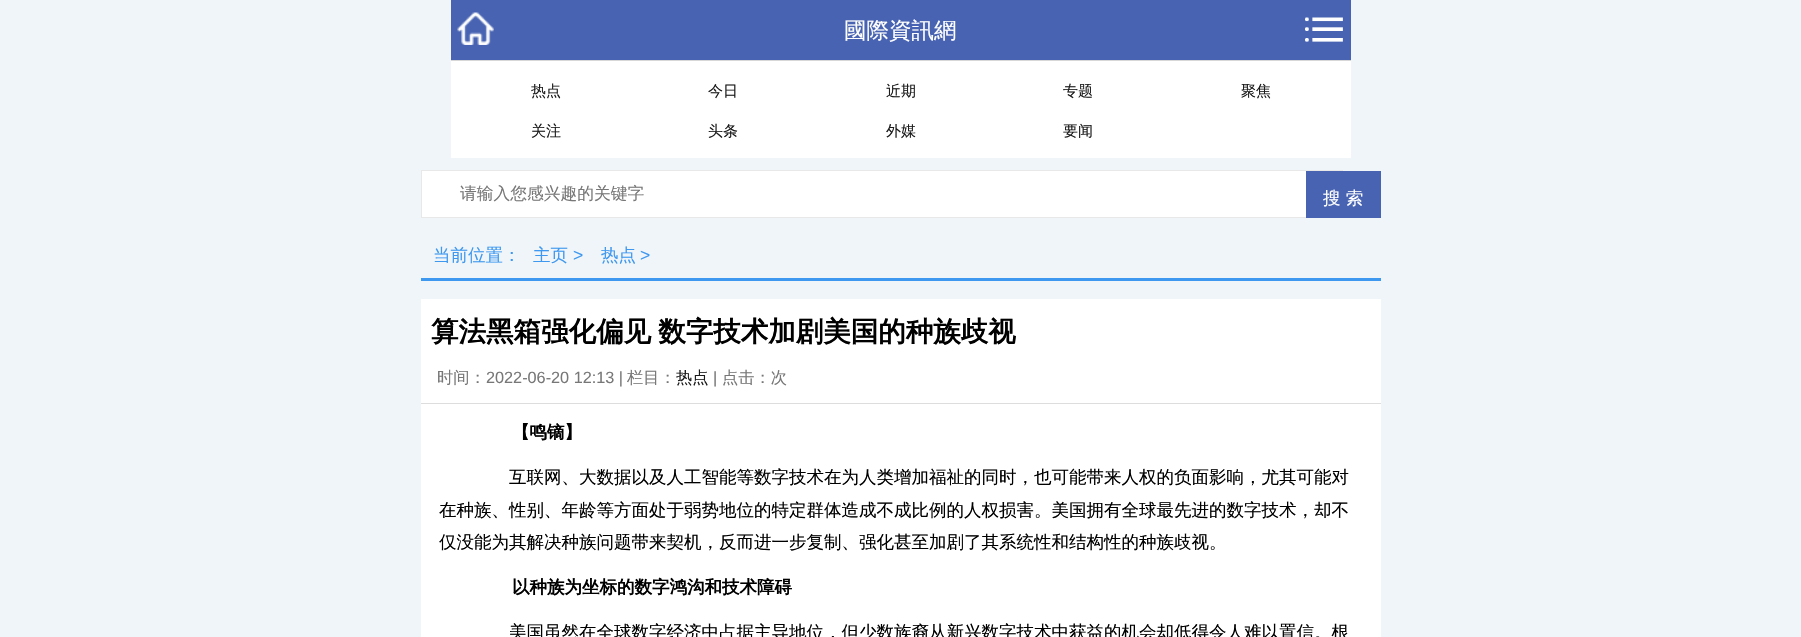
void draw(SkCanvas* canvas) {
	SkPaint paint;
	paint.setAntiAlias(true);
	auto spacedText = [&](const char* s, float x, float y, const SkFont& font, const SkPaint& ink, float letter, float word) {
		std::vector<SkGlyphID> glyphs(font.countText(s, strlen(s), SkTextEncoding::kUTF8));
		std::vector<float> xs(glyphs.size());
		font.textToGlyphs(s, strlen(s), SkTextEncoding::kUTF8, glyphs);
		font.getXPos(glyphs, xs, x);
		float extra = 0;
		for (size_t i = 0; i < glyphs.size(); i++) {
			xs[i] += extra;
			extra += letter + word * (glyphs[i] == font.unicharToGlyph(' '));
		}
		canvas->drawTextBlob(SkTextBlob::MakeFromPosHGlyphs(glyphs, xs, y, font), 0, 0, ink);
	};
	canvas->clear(0xfff0f5f9);
	paint.setColor(0xff4763b2);
	canvas->drawRect(SkRect::MakeXYWH(451, 0, 900, 60), paint);
	canvas->drawImageRect(SkImages::DeferredFromEncodedData(SkData::MakeFromFileName("img1.png")), SkRect::MakeXYWH(457, 12, 37, 33), SkSamplingOptions());
	SkFont f1(fontMgr->matchFamilyStyle("WenQuanYi Zen Hei", SkFontStyle(500, SkFontStyle::kNormal_Width, SkFontStyle::kUpright_Slant)), 22.5);
	f1.setSubpixel(true);
	paint.setColor(0xffffffff);
	canvas->drawString("國際資訊網", 844, 38, f1, paint);
	canvas->drawImageRect(SkImages::DeferredFromEncodedData(SkData::MakeFromFileName("img2.png")), SkRect::MakeXYWH(1305, 17, 38, 25), SkSamplingOptions());
	canvas->drawRect(SkRect::MakeXYWH(451, 61, 900, 97), paint);
	paint.setColor(0xffd7d7d7);
	canvas->drawRect(SkRect::MakeXYWH(451, 60, 900, 1), paint);
	SkFont f2(fontMgr->matchFamilyStyle("WenQuanYi Zen Hei", SkFontStyle(500, SkFontStyle::kNormal_Width, SkFontStyle::kUpright_Slant)), 15);
	f2.setSubpixel(true);
	paint.setColor(0xff1b1b1b);
	canvas->drawString("热点", 531, 96, f2, paint);
	canvas->drawString("今日", 708, 96, f2, paint);
	canvas->drawString("近期", 886, 96, f2, paint);
	canvas->drawString("专题", 1063, 96, f2, paint);
	canvas->drawString("聚焦", 1241, 96, f2, paint);
	canvas->drawString("关注", 531, 136, f2, paint);
	canvas->drawString("头条", 708, 136, f2, paint);
	canvas->drawString("外媒", 886, 136, f2, paint);
	canvas->drawString("要闻", 1063, 136, f2, paint);
	paint.setColor(0xffffffff);
	canvas->drawRect(SkRect::MakeXYWH(422, 171, 884, 46), paint);
	paint.setStroke(true);
	paint.setStrokeWidth(1);
	paint.setColor(0xffe8e8e8);
	canvas->drawRect(SkRect::MakeXYWH(421.5, 170.5, 921, 47), paint);
	SkFont f3(fontMgr->matchFamilyStyle("WenQuanYi Zen Hei", SkFontStyle(500, SkFontStyle::kNormal_Width, SkFontStyle::kUpright_Slant)), 16.75);
	f3.setSubpixel(true);
	paint.setStroke(false);
	paint.setColor(0xff777777);
	canvas->drawString("请输入您感兴趣的关键字", 460, 199, f3, paint);
	paint.setColor(0xff4763b2);
	canvas->drawRect(SkRect::MakeXYWH(1306, 171, 75, 47), paint);
	SkFont f4(fontMgr->matchFamilyStyle("WenQuanYi Zen Hei", SkFontStyle(500, SkFontStyle::kNormal_Width, SkFontStyle::kUpright_Slant)), 17.5);
	f4.setSubpixel(true);
	paint.setColor(0xffffffff);
	canvas->drawString("搜 索", 1323, 204, f4, paint);
	paint.setColor(0xff3e98f0);
	canvas->drawRect(SkRect::MakeXYWH(421, 278, 960, 3), paint);
	canvas->drawString("当前位置：", 433, 261, f4, paint);
	canvas->drawString("主页", 533, 261, f4, paint);
	SkFont f5(fontMgr->matchFamilyStyle("Liberation Sans", SkFontStyle::Normal()), 17.5);
	f5.setSubpixel(true);
	canvas->drawString(">", 573, 261, f5, paint);
	canvas->drawString("热点", 601, 261, f4, paint);
	canvas->drawString(">", 640, 261, f5, paint);
	paint.setColor(0xffffffff);
	canvas->drawRect(SkRect::MakeXYWH(421, 299, 960, 338), paint);
	paint.setColor(0xffdddddd);
	canvas->drawRect(SkRect::MakeXYWH(421, 403, 960, 1), paint);
	SkFont f6(fontMgr->matchFamilyStyle("WenQuanYi Zen Hei", SkFontStyle::Bold()), 27.5);
	f6.setSubpixel(true);
	paint.setColor(0xff000000);
	spacedText("算法黑箱强化偏见 数字技术加剧美国的种族歧视", 431, 341, f6, paint, 0, -1);
	SkFont f7(fontMgr->matchFamilyStyle("WenQuanYi Zen Hei", SkFontStyle(500, SkFontStyle::kNormal_Width, SkFontStyle::kUpright_Slant)), 16.25);
	f7.setSubpixel(true);
	paint.setColor(0xff777777);
	canvas->drawString("时间：", 437, 383, f7, paint);
	SkFont f8(fontMgr->matchFamilyStyle("Liberation Sans", SkFontStyle::Normal()), 16.25);
	f8.setSubpixel(true);
	canvas->drawString("2022-06-20 12:13 |", 486, 383, f8, paint);
	canvas->drawString("栏目：", 627, 383, f7, paint);
	paint.setColor(0xff1b1b1b);
	canvas->drawString("热点", 676, 383, f7, paint);
	paint.setColor(0xff777777);
	canvas->drawString("|", 713, 383, f8, paint);
	canvas->drawString("点击：次", 722, 383, f7, paint);
	SkFont f9(fontMgr->matchFamilyStyle("WenQuanYi Zen Hei", SkFontStyle::Bold()), 17.5);
	f9.setSubpixel(true);
	paint.setColor(0xff000000);
	canvas->drawString("【鸣镝】", 512, 438, f9, paint);
	canvas->drawString("互联网、大数据以及人工智能等数字技术在为人类增加福祉的同时，也可能带来人权的负面影响，尤其可能对", 509, 483, f4, paint);
	canvas->drawString("在种族、性别、年龄等方面处于弱势地位的特定群体造成不成比例的人权损害。美国拥有全球最先进的数字技术，却不", 439, 516, f4, paint);
	canvas->drawString("仅没能为其解决种族问题带来契机，反而进一步复制、强化甚至加剧了其系统性和结构性的种族歧视。", 439, 548, f4, paint);
	canvas->drawString("以种族为坐标的数字鸿沟和技术障碍", 512, 593, f9, paint);
	canvas->drawString("美国虽然在全球数字经济中占据主导地位，但少数族裔从新兴数字技术中获益的机会却低得令人难以置信。根", 509, 638, f4, paint);
}
